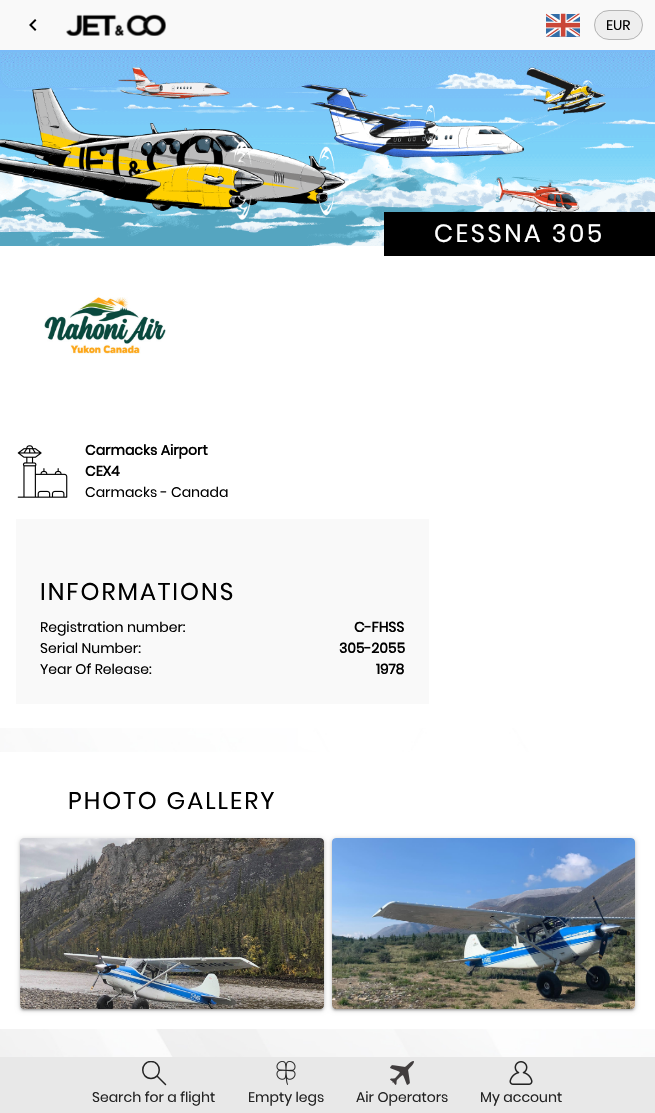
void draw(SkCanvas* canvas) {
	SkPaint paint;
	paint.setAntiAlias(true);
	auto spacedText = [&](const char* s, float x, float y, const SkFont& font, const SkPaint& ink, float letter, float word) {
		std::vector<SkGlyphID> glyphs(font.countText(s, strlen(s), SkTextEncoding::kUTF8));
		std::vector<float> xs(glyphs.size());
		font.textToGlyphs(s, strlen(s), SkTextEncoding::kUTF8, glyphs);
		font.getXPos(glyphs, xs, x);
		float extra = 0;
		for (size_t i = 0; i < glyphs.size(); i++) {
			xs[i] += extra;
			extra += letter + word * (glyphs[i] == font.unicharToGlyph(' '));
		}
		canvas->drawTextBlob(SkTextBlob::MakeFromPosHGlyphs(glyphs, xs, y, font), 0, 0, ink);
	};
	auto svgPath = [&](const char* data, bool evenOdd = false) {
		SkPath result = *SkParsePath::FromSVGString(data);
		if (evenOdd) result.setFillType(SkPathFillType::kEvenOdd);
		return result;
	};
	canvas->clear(0xffffffff);
	paint.setColor(0xfff9f9f9);
	canvas->drawRect(SkRect::MakeXYWH(0, 0, 655, 50), paint);
	canvas->drawImageRect(SkImages::DeferredFromEncodedData(SkData::MakeFromFileName("img1.png")), SkRect::MakeXYWH(29, 19, 8, 12), SkSamplingOptions());
	canvas->drawImageRect(SkImages::DeferredFromEncodedData(SkData::MakeFromFileName("img2.png")), SkRect::MakeXYWH(66, 14, 100, 22), SkSamplingOptions());
	canvas->drawImageRect(SkImages::DeferredFromEncodedData(SkData::MakeFromFileName("img3.png")), SkRect::MakeXYWH(546, 13, 34, 24), SkSamplingOptions());
	paint.setColor(0xffeeeeee);
	canvas->drawRoundRect(SkRect::MakeXYWH(594, 10, 49, 30), 15, 15, paint);
	paint.setStroke(true);
	paint.setStrokeWidth(1);
	paint.setColor(0x3d000000);
	canvas->drawRoundRect(SkRect::MakeXYWH(594.5, 10.5, 48, 29), 14.5, 14.5, paint);
	SkFont f1(fontMgr->matchFamilyStyle("Poppins", SkFontStyle::Normal()), 14);
	f1.setSubpixel(true);
	paint.setStroke(false);
	paint.setColor(0xff000000);
	canvas->drawString("EUR", 606, 30, f1, paint);
	canvas->drawImageRect(SkImages::DeferredFromEncodedData(SkData::MakeFromFileName("img4.png")), SkRect::MakeXYWH(0, 50, 655, 196), SkSamplingOptions());
	canvas->drawRect(SkRect::MakeXYWH(384, 212, 271, 44), paint);
	SkFont f2(fontMgr->matchFamilyStyle("Poppins", SkFontStyle::Normal()), 25);
	f2.setSubpixel(true);
	paint.setColor(0xffffffff);
	spacedText("CESSNA 305", 434, 242, f2, paint, 2.5, 0);
	canvas->drawImageRect(SkImages::DeferredFromEncodedData(SkData::MakeFromFileName("img5.png")), SkRect::MakeXYWH(44, 297, 122, 57), SkSamplingOptions());
	canvas->drawImageRect(SkImages::DeferredFromEncodedData(SkData::MakeFromFileName("img6.png")), SkRect::MakeXYWH(17, 445, 51, 53), SkSamplingOptions());
	SkFont f3(fontMgr->matchFamilyStyle("Poppins", SkFontStyle::Bold()), 14);
	f3.setSubpixel(true);
	paint.setColor(0xff000000);
	canvas->drawString("Carmacks Airport", 85, 455, f3, paint);
	canvas->drawString("CEX4", 85, 476, f3, paint);
	canvas->drawString("Carmacks - Canada", 85, 497, f1, paint);
	paint.setColor(0xfff9f9f9);
	canvas->drawRect(SkRect::MakeXYWH(16, 519, 413, 185), paint);
	SkFont f4(fontMgr->matchFamilyStyle("Poppins", SkFontStyle::Normal()), 24);
	f4.setSubpixel(true);
	paint.setColor(0xff000000);
	spacedText("INFORMATIONS", 40, 600, f4, paint, 2, 0);
	canvas->drawString("Registration number:", 40, 632, f1, paint);
	canvas->drawString("C-FHSS", 354, 632, f3, paint);
	canvas->drawString("Serial Number:", 40, 653, f1, paint);
	canvas->drawString("305-2055", 339, 653, f3, paint);
	canvas->drawString("Year Of Release:", 40, 674, f1, paint);
	canvas->drawString("1978", 376, 674, f3, paint);
	canvas->drawImageRect(SkImages::DeferredFromEncodedData(SkData::MakeFromFileName("img9.png")), SkRect::MakeXYWH(0, 728, 655, 329), SkSamplingOptions());
	paint.setColor(0xffffffff);
	canvas->drawRect(SkRect::MakeXYWH(0, 752, 655, 277), paint);
	paint.setColor(0xff000000);
	spacedText("PHOTO GALLERY", 68, 809, f4, paint, 2, 0);
	paint.setColor(0x1f000000);
	paint.setMaskFilter(SkMaskFilter::MakeBlur(kNormal_SkBlurStyle, 0.5));
	canvas->drawRoundRect(SkRect::MakeXYWH(22, 843, 300, 167), 2, 2, paint);
	paint.setMaskFilter(nullptr);
	paint.setColor(0x24000000);
	paint.setMaskFilter(SkMaskFilter::MakeBlur(kNormal_SkBlurStyle, 1));
	canvas->drawRoundRect(SkRect::MakeXYWH(20, 840, 304, 171), 4, 4, paint);
	paint.setMaskFilter(nullptr);
	paint.setColor(0x33000000);
	paint.setMaskFilter(SkMaskFilter::MakeBlur(kNormal_SkBlurStyle, 2.5));
	canvas->drawRoundRect(SkRect::MakeXYWH(20, 839, 304, 171), 4, 4, paint);
	paint.setMaskFilter(nullptr);
	canvas->drawImageRect(SkImages::DeferredFromEncodedData(SkData::MakeFromFileName("img7.png")), SkRect::MakeXYWH(20, 838, 304, 171), SkSamplingOptions());
	paint.setColor(0x1f000000);
	paint.setMaskFilter(SkMaskFilter::MakeBlur(kNormal_SkBlurStyle, 0.5));
	canvas->drawRoundRect(SkRect::MakeXYWH(334, 843, 299, 167), 2, 2, paint);
	paint.setMaskFilter(nullptr);
	paint.setColor(0x24000000);
	paint.setMaskFilter(SkMaskFilter::MakeBlur(kNormal_SkBlurStyle, 1));
	canvas->drawRoundRect(SkRect::MakeXYWH(332, 840, 303, 171), 4, 4, paint);
	paint.setMaskFilter(nullptr);
	paint.setColor(0x33000000);
	paint.setMaskFilter(SkMaskFilter::MakeBlur(kNormal_SkBlurStyle, 2.5));
	canvas->drawRoundRect(SkRect::MakeXYWH(332, 839, 303, 171), 4, 4, paint);
	paint.setMaskFilter(nullptr);
	canvas->drawImageRect(SkImages::DeferredFromEncodedData(SkData::MakeFromFileName("img8.png")), SkRect::MakeXYWH(332, 838, 303, 171), SkSamplingOptions());
	paint.setColor(0xffe8e8e8);
	canvas->drawRect(SkRect::MakeXYWH(0, 1057, 655, 56), paint);
	canvas->save();
	canvas->clipRect(SkRect::MakeXYWH(142, 1061, 24, 24));
	paint.setStroke(true);
	paint.setStrokeWidth(1.5);
	paint.setStrokeCap(SkPaint::kRound_Cap);
	paint.setStrokeJoin(SkPaint::kRound_Join);
	paint.setColor(0xff232323);
	canvas->drawPath(svgPath("M151 1078.5C162 1078.5 162 1061.5 151 1061.5C140 1061.5 140 1078.5 151 1078.5Z"), paint);
	canvas->restore();
	canvas->drawPath(svgPath("M165.5 1084.5L157.5 1076.5"), paint);
	paint.setStroke(false);
	canvas->drawString("Search for a flight", 92, 1102, f1, paint);
	canvas->drawImageRect(SkImages::DeferredFromEncodedData(SkData::MakeFromFileName("img10.png")), SkRect::MakeXYWH(276, 1061, 20, 24), SkSamplingOptions());
	canvas->drawString("Empty legs", 248, 1102, f1, paint);
	canvas->drawImageRect(SkImages::DeferredFromEncodedData(SkData::MakeFromFileName("img11.png")), SkRect::MakeXYWH(390, 1061, 24, 24), SkSamplingOptions());
	canvas->drawString("Air Operators", 356, 1102, f1, paint);
	canvas->drawImageRect(SkImages::DeferredFromEncodedData(SkData::MakeFromFileName("img12.png")), SkRect::MakeXYWH(509, 1061, 24, 24), SkSamplingOptions());
	canvas->drawString("My account", 480, 1102, f1, paint);
}
